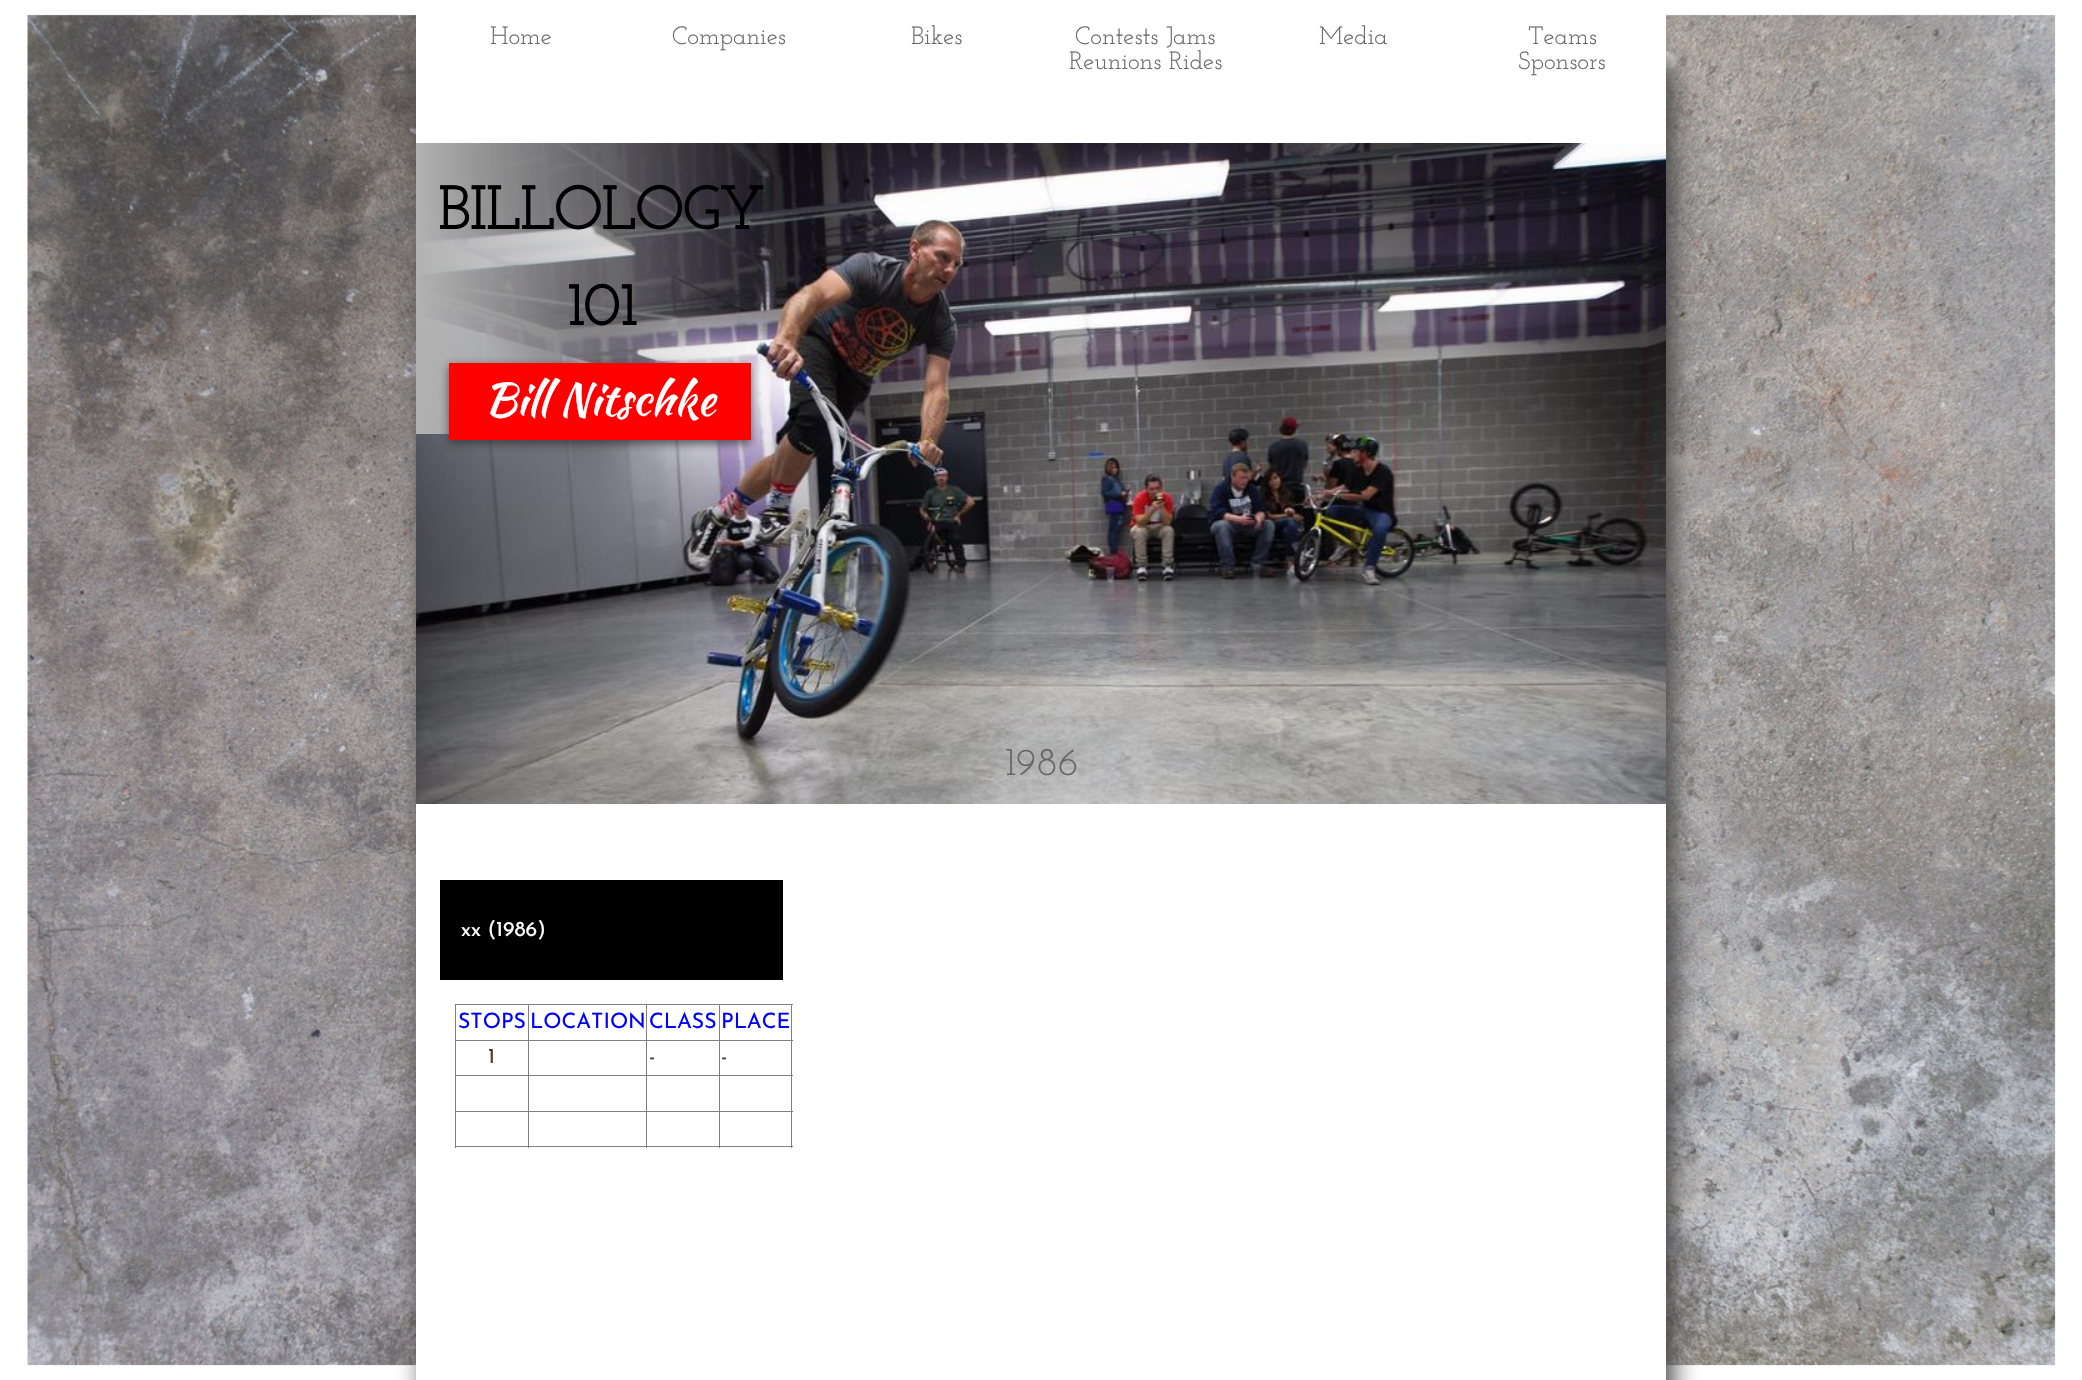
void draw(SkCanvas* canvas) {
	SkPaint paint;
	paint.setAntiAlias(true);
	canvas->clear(0xffffffff);
	canvas->drawImageRect(SkImages::DeferredFromEncodedData(SkData::MakeFromFileName("img1.png")), SkRect::MakeXYWH(27, 14, 2029, 1352), SkSamplingOptions());
	paint.setColor(0xff444444);
	paint.setMaskFilter(SkMaskFilter::MakeBlur(kNormal_SkBlurStyle, 12));
	canvas->drawRect(SkRect::MakeXYWH(423, 65, 1250, 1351), paint);
	paint.setMaskFilter(nullptr);
	paint.setColor(0xffffffff);
	canvas->drawRect(SkRect::MakeXYWH(416, 96, 1250, 1284), paint);
	canvas->drawRect(SkRect::MakeXYWH(416, 14, 1250, 82), paint);
	SkFont f1(fontMgr->matchFamilyStyle("Josefin Slab", SkFontStyle(100, SkFontStyle::kNormal_Width, SkFontStyle::kUpright_Slant)), 25);
	f1.setSubpixel(true);
	paint.setColor(0xff666666);
	canvas->drawString("Home", 490, 44, f1, paint);
	canvas->drawString("Companies", 672, 44, f1, paint);
	canvas->drawString("Bikes", 911, 44, f1, paint);
	canvas->drawString("Contests Jams", 1075, 44, f1, paint);
	canvas->drawString("Reunions Rides", 1069, 69, f1, paint);
	canvas->drawString("Media", 1319, 44, f1, paint);
	canvas->drawString("Teams", 1528, 44, f1, paint);
	canvas->drawString("Sponsors", 1518, 69, f1, paint);
	canvas->drawImageRect(SkImages::DeferredFromEncodedData(SkData::MakeFromFileName("img2.png")), SkRect::MakeXYWH(416, 143, 1250, 661), SkSamplingOptions());
	SkFont f2(fontMgr->matchFamilyStyle("Josefin Slab", SkFontStyle::Bold()), 60);
	f2.setSubpixel(true);
	paint.setColor(0xff000000);
	canvas->drawString("BILLOLOGY", 438, 229, f2, paint);
	canvas->drawString("101", 567, 325, f2, paint);
	paint.setColor(0xbf323232);
	paint.setMaskFilter(SkMaskFilter::MakeBlur(kNormal_SkBlurStyle, 4.5));
	canvas->drawRect(SkRect::MakeXYWH(449, 366, 302, 78), paint);
	paint.setMaskFilter(nullptr);
	paint.setColor(0xffff0000);
	canvas->drawRect(SkRect::MakeXYWH(449, 363, 302, 77), paint);
	SkFont f3(fontMgr->matchFamilyStyle("Kaushan Script", SkFontStyle::Normal()), 45);
	f3.setSubpixel(true);
	paint.setColor(0xffffffff);
	canvas->drawString("Bill Nitschke", 484, 415, f3, paint);
	SkFont f4(fontMgr->matchFamilyStyle("Josefin Slab", SkFontStyle(100, SkFontStyle::kNormal_Width, SkFontStyle::kUpright_Slant)), 40);
	f4.setSubpixel(true);
	paint.setColor(0xff666666);
	canvas->drawString("1986", 1005, 775, f4, paint);
	paint.setColor(0xff000000);
	canvas->drawRect(SkRect::MakeXYWH(440, 880, 343, 100), paint);
	SkFont f5(fontMgr->matchFamilyStyle("Josefin Sans", SkFontStyle(100, SkFontStyle::kNormal_Width, SkFontStyle::kUpright_Slant)), 21.25);
	f5.setSubpixel(true);
	paint.setColor(0xffffffff);
	canvas->drawString("xx (1986)", 461, 936, f5, paint);
	paint.setColor(0xff808080);
	canvas->drawRect(SkRect::MakeXYWH(455, 1004, 338, 1), paint);
	canvas->drawRect(SkRect::MakeXYWH(791, 1004, 1, 144), paint);
	canvas->drawRect(SkRect::MakeXYWH(455, 1146, 338, 1), paint);
	canvas->drawRect(SkRect::MakeXYWH(455, 1004, 1, 144), paint);
	paint.setColor(0xff0000ff);
	canvas->drawString("STOPS", 458, 1028, f5, paint);
	paint.setColor(0xff808080);
	canvas->drawRect(SkRect::MakeXYWH(719, 1040, 74, 1), paint);
	canvas->drawRect(SkRect::MakeXYWH(719, 1075, 74, 1), paint);
	canvas->drawRect(SkRect::MakeXYWH(719, 1111, 74, 1), paint);
	canvas->drawRect(SkRect::MakeXYWH(719, 1111, 1, 37), paint);
	canvas->drawRect(SkRect::MakeXYWH(646, 1111, 74, 1), paint);
	canvas->drawRect(SkRect::MakeXYWH(719, 1075, 1, 38), paint);
	canvas->drawRect(SkRect::MakeXYWH(646, 1075, 74, 1), paint);
	canvas->drawRect(SkRect::MakeXYWH(719, 1040, 1, 36), paint);
	canvas->drawRect(SkRect::MakeXYWH(646, 1040, 74, 1), paint);
	canvas->drawRect(SkRect::MakeXYWH(646, 1111, 1, 37), paint);
	canvas->drawRect(SkRect::MakeXYWH(528, 1111, 120, 1), paint);
	canvas->drawRect(SkRect::MakeXYWH(646, 1075, 1, 38), paint);
	canvas->drawRect(SkRect::MakeXYWH(528, 1075, 120, 1), paint);
	canvas->drawRect(SkRect::MakeXYWH(646, 1040, 1, 36), paint);
	canvas->drawRect(SkRect::MakeXYWH(528, 1040, 120, 1), paint);
	canvas->drawRect(SkRect::MakeXYWH(528, 1111, 1, 37), paint);
	canvas->drawRect(SkRect::MakeXYWH(455, 1111, 74, 1), paint);
	canvas->drawRect(SkRect::MakeXYWH(528, 1075, 1, 38), paint);
	canvas->drawRect(SkRect::MakeXYWH(455, 1075, 74, 1), paint);
	canvas->drawRect(SkRect::MakeXYWH(528, 1040, 1, 36), paint);
	canvas->drawRect(SkRect::MakeXYWH(455, 1040, 74, 1), paint);
	canvas->drawRect(SkRect::MakeXYWH(528, 1004, 1, 37), paint);
	paint.setColor(0xff0000ff);
	canvas->drawString("LOCATION", 530, 1028, f5, paint);
	paint.setColor(0xff808080);
	canvas->drawRect(SkRect::MakeXYWH(646, 1004, 1, 37), paint);
	paint.setColor(0xff0000ff);
	canvas->drawString("CLASS", 649, 1028, f5, paint);
	paint.setColor(0xff808080);
	canvas->drawRect(SkRect::MakeXYWH(719, 1004, 1, 37), paint);
	paint.setColor(0xff0000ff);
	canvas->drawString("PLACE", 721, 1028, f5, paint);
	paint.setColor(0xff513e25);
	canvas->drawString("1", 488, 1063, f5, paint);
	canvas->drawString("-", 649, 1063, f5, paint);
	canvas->drawString("-", 721, 1063, f5, paint);
}
